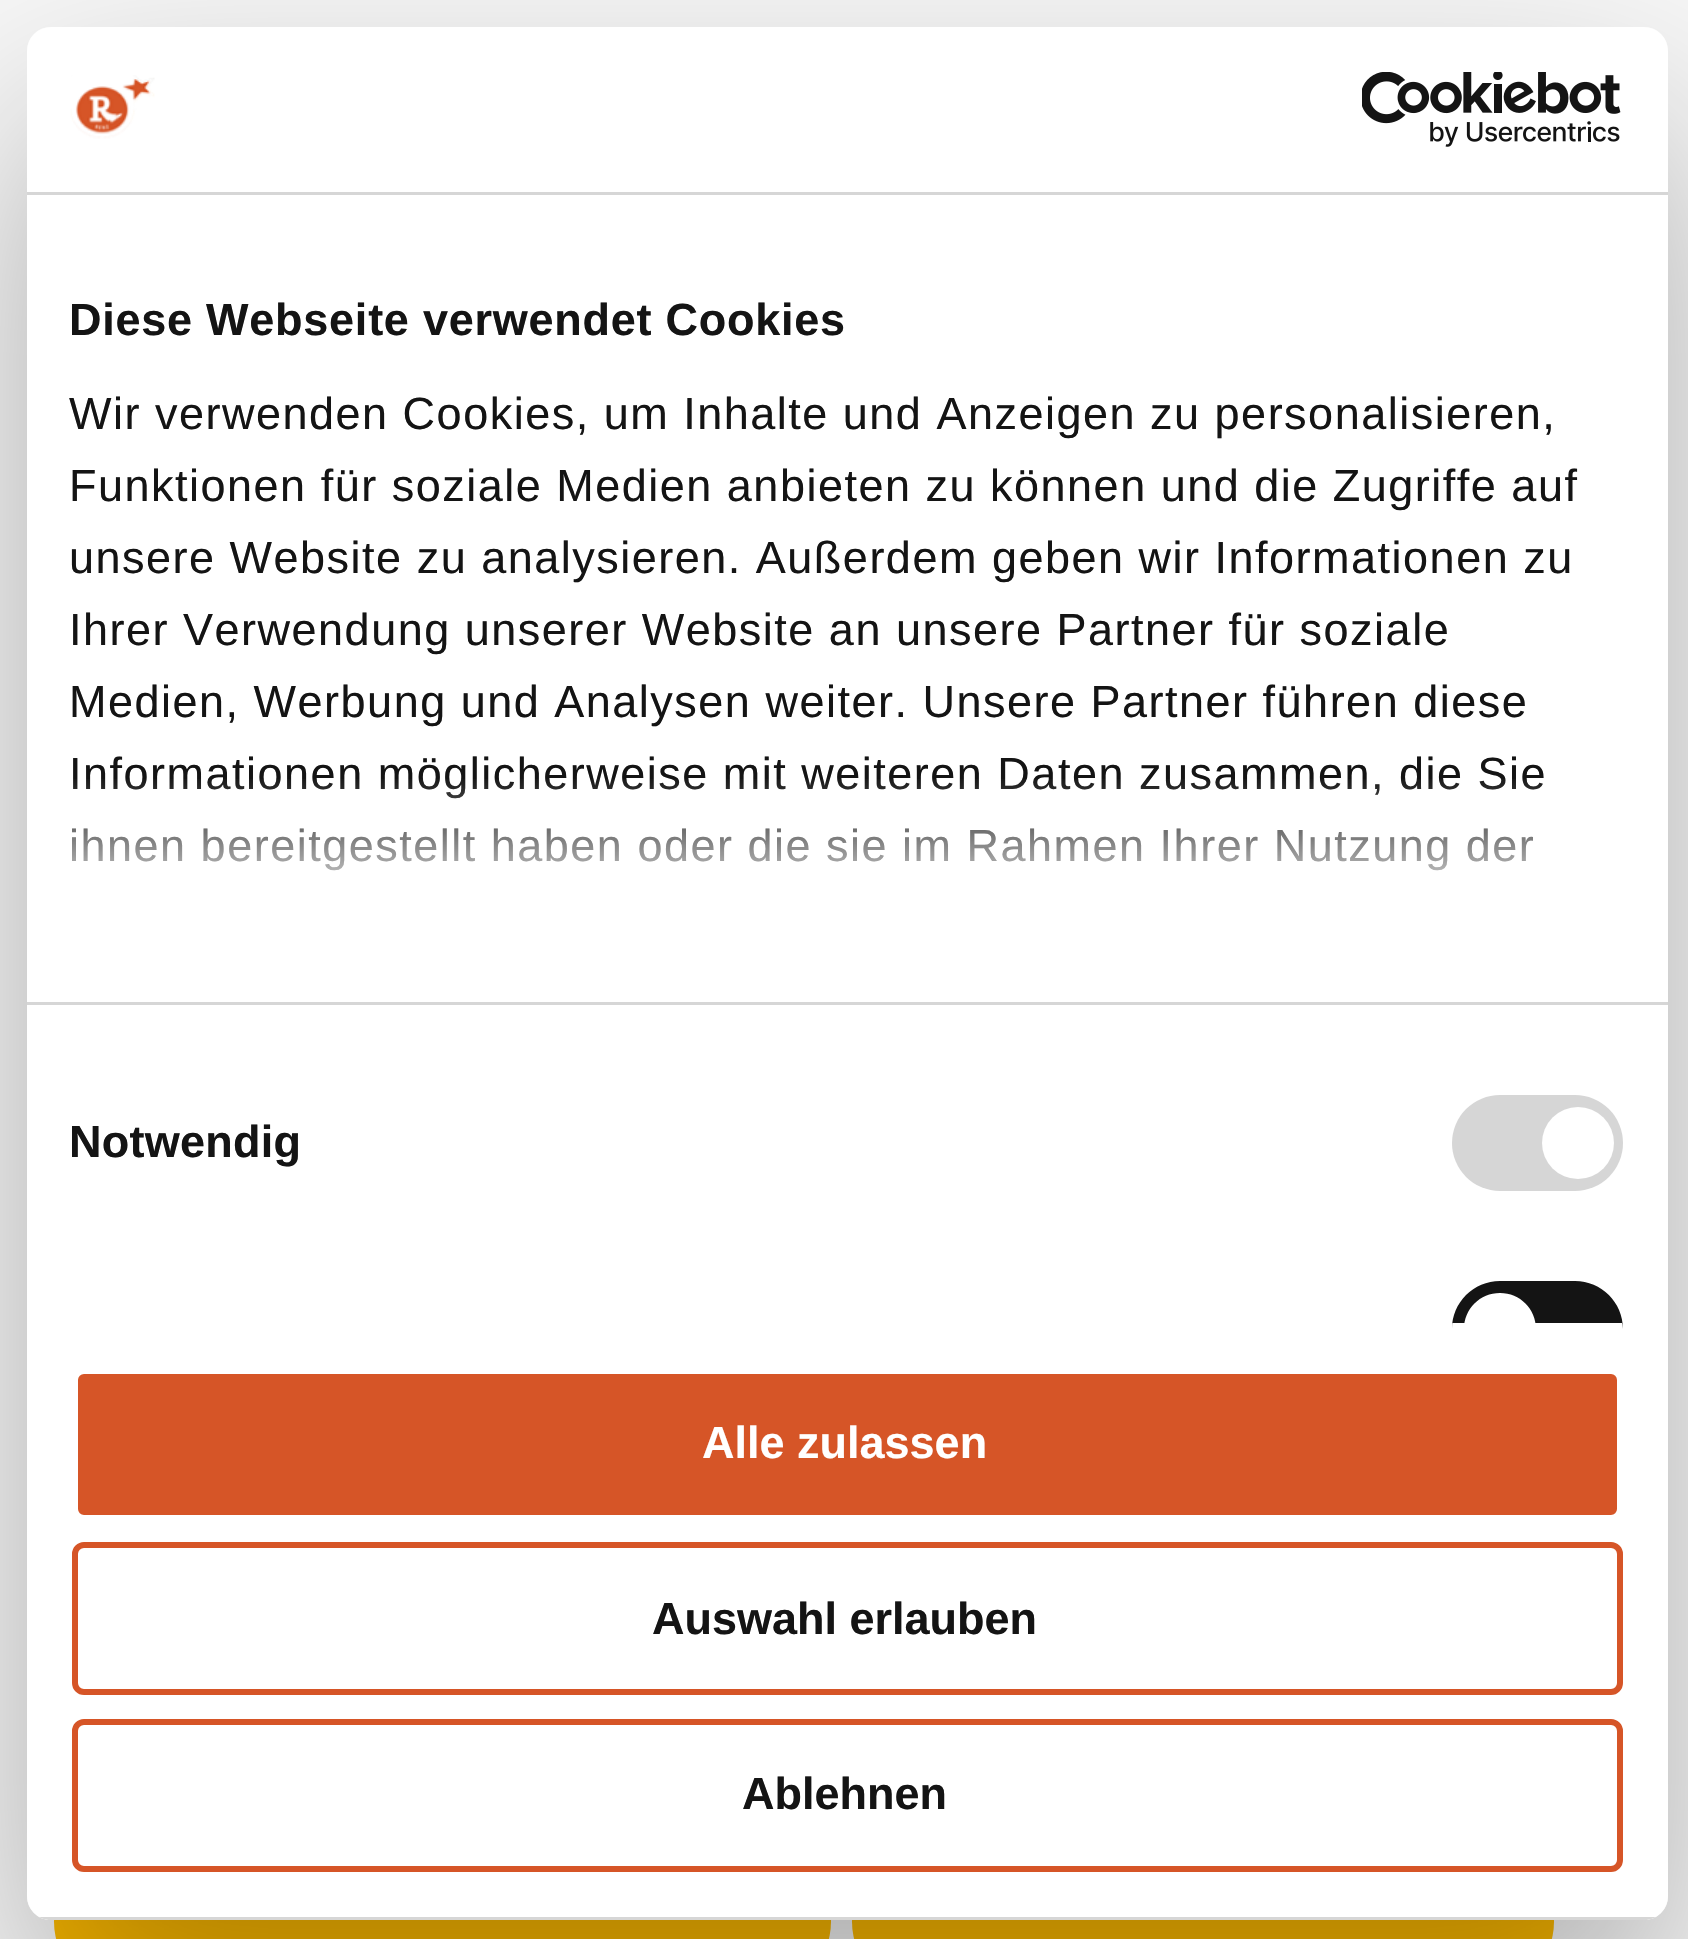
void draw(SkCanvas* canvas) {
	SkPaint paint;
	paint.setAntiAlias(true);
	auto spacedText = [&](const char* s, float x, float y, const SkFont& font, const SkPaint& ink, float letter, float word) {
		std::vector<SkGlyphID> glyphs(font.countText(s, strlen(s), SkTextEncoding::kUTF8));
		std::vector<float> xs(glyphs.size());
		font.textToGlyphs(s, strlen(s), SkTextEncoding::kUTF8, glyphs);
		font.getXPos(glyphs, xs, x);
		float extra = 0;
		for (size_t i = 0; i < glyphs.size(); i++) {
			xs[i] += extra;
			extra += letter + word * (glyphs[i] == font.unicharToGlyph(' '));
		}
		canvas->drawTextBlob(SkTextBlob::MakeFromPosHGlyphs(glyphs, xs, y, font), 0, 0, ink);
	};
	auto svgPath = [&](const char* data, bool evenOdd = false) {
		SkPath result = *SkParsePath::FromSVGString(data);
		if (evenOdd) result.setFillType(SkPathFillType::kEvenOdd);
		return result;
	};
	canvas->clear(0xfff7f7f7);
	paint.setColor(0xfffcb900);
	canvas->drawRoundRect(SkRect::MakeXYWH(54, 1848, 777, 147), 73.5, 73.5, paint);
	canvas->drawRoundRect(SkRect::MakeXYWH(852, 1848, 702, 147), 73.5, 73.5, paint);
	canvas->save();
	canvas->clipPath(svgPath("M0 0H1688V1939H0ZM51 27H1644C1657.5 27 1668 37.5 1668 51V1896C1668 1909.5 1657.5 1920 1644 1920H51C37.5 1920 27 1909.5 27 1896V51C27 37.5 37.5 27 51 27Z", true), true);
	paint.setColor(0x4d000000);
	paint.setMaskFilter(SkMaskFilter::MakeBlur(kNormal_SkBlurStyle, 102));
	canvas->drawRoundRect(SkRect::MakeXYWH(27, 123, 1641, 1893), 24, 24, paint);
	paint.setMaskFilter(nullptr);
	canvas->restore();
	paint.setColor(0xffffffff);
	canvas->drawRoundRect(SkRect::MakeXYWH(27, 27, 1641, 1893), 24, 24, paint);
	paint.setColor(0xffd6d6d6);
	canvas->drawRect(SkRect::MakeXYWH(27, 192, 1641, 3), paint);
	canvas->drawImageRect(SkImages::DeferredFromEncodedData(SkData::MakeFromFileName("img1.png")), SkRect::MakeXYWH(70, 75, 85, 64), SkSamplingOptions());
	canvas->drawImageRect(SkImages::DeferredFromEncodedData(SkData::MakeFromFileName("img2.png")), SkRect::MakeXYWH(1362, 72, 259, 75), SkSamplingOptions());
	canvas->drawRect(SkRect::MakeXYWH(27, 1002, 1641, 3), paint);
	SkFont f1(fontMgr->matchFamilyStyle("Liberation Sans", SkFontStyle::Bold()), 45);
	f1.setSubpixel(true);
	paint.setColor(0xff141414);
	spacedText("Diese Webseite verwendet Cookies", 69, 335, f1, paint, 0.75, 0);
	SkFont f2(fontMgr->matchFamilyStyle("Liberation Sans", SkFontStyle::Normal()), 45);
	f2.setSubpixel(true);
	spacedText("Wir verwenden Cookies, um Inhalte und Anzeigen zu personalisieren,", 69, 429, f2, paint, 1.5, 0);
	spacedText("Funktionen für soziale Medien anbieten zu können und die Zugriffe auf", 69, 501, f2, paint, 1.5, 0);
	spacedText("unsere Website zu analysieren. Außerdem geben wir Informationen zu", 69, 573, f2, paint, 1.5, 0);
	spacedText("Ihrer Verwendung unserer Website an unsere Partner für soziale", 69, 645, f2, paint, 1.5, 0);
	spacedText("Medien, Werbung und Analysen weiter. Unsere Partner führen diese", 69, 717, f2, paint, 1.5, 0);
	spacedText("Informationen möglicherweise mit weiteren Daten zusammen, die Sie", 69, 789, f2, paint, 1.5, 0);
	spacedText("ihnen bereitgestellt haben oder die sie im Rahmen Ihrer Nutzung der", 69, 861, f2, paint, 1.5, 0);
	{
		const SkColor colors[] = {0xffffffff, 0xccffffff, 0x00ffffff};
		const float stops[] = {0, 0.5, 1};
		const SkPoint ends[] = {{827, 1001}, {827, 776}};
		paint.setShader(SkGradientShader::MakeLinear(ends, colors, stops, 3, SkTileMode::kClamp));
		paint.setAlpha(255);
	}
	canvas->drawRect(SkRect::MakeXYWH(72, 779, 1471, 92), paint);
	paint.setShader(nullptr);
	paint.setColor(0xff141414);
	spacedText("Notwendig", 69, 1157, f1, paint, 0.25, 0);
	paint.setColor(0xffd6d6d6);
	canvas->drawRoundRect(SkRect::MakeXYWH(1452, 1095, 171, 96), 48, 48, paint);
	paint.setColor(0xffffffff);
	canvas->drawCircle(1578, 1143, 36, paint);
	paint.setColor(0xff141414);
	canvas->drawPath(svgPath("M1500 1281H1575C1601.5 1281 1623 1302.5 1623 1329V1323H1452V1329C1452 1302.5 1473.5 1281 1500 1281Z"), paint);
	paint.setColor(0xffffffff);
	canvas->drawPath(svgPath("M1500 1293C1520 1293 1536 1309 1536 1329V1323H1464V1329C1464 1309 1480 1293 1500 1293Z"), paint);
	canvas->save();
	canvas->clipPath(svgPath("M51 27H1644C1657.5 27 1668 37.5 1668 51V1896C1668 1909.5 1657.5 1920 1644 1920H51C37.5 1920 27 1909.5 27 1896V51C27 37.5 37.5 27 51 27Z"), true);
	paint.setColor(0xffd6d6d6);
	canvas->drawRect(SkRect::MakeXYWH(39, 1917, 1617, 3), paint);
	canvas->restore();
	paint.setColor(0xffd65527);
	canvas->drawRoundRect(SkRect::MakeXYWH(75, 1371, 1545, 147), 9, 9, paint);
	paint.setStroke(true);
	paint.setStrokeWidth(6);
	paint.setColor(0xffffffff);
	canvas->drawRoundRect(SkRect::MakeXYWH(75, 1371, 1545, 147), 9, 9, paint);
	paint.setStroke(false);
	canvas->drawString("Alle zulassen", 702, 1458, f1, paint);
	paint.setStroke(true);
	paint.setColor(0xffd65527);
	canvas->drawRoundRect(SkRect::MakeXYWH(75, 1545, 1545, 147), 9, 9, paint);
	paint.setStroke(false);
	paint.setColor(0xff141414);
	canvas->drawString("Auswahl erlauben", 652, 1634, f1, paint);
	paint.setStroke(true);
	paint.setColor(0xffd65527);
	canvas->drawRoundRect(SkRect::MakeXYWH(75, 1722, 1545, 147), 9, 9, paint);
	paint.setStroke(false);
	paint.setColor(0xff141414);
	canvas->drawString("Ablehnen", 742, 1809, f1, paint);
}
